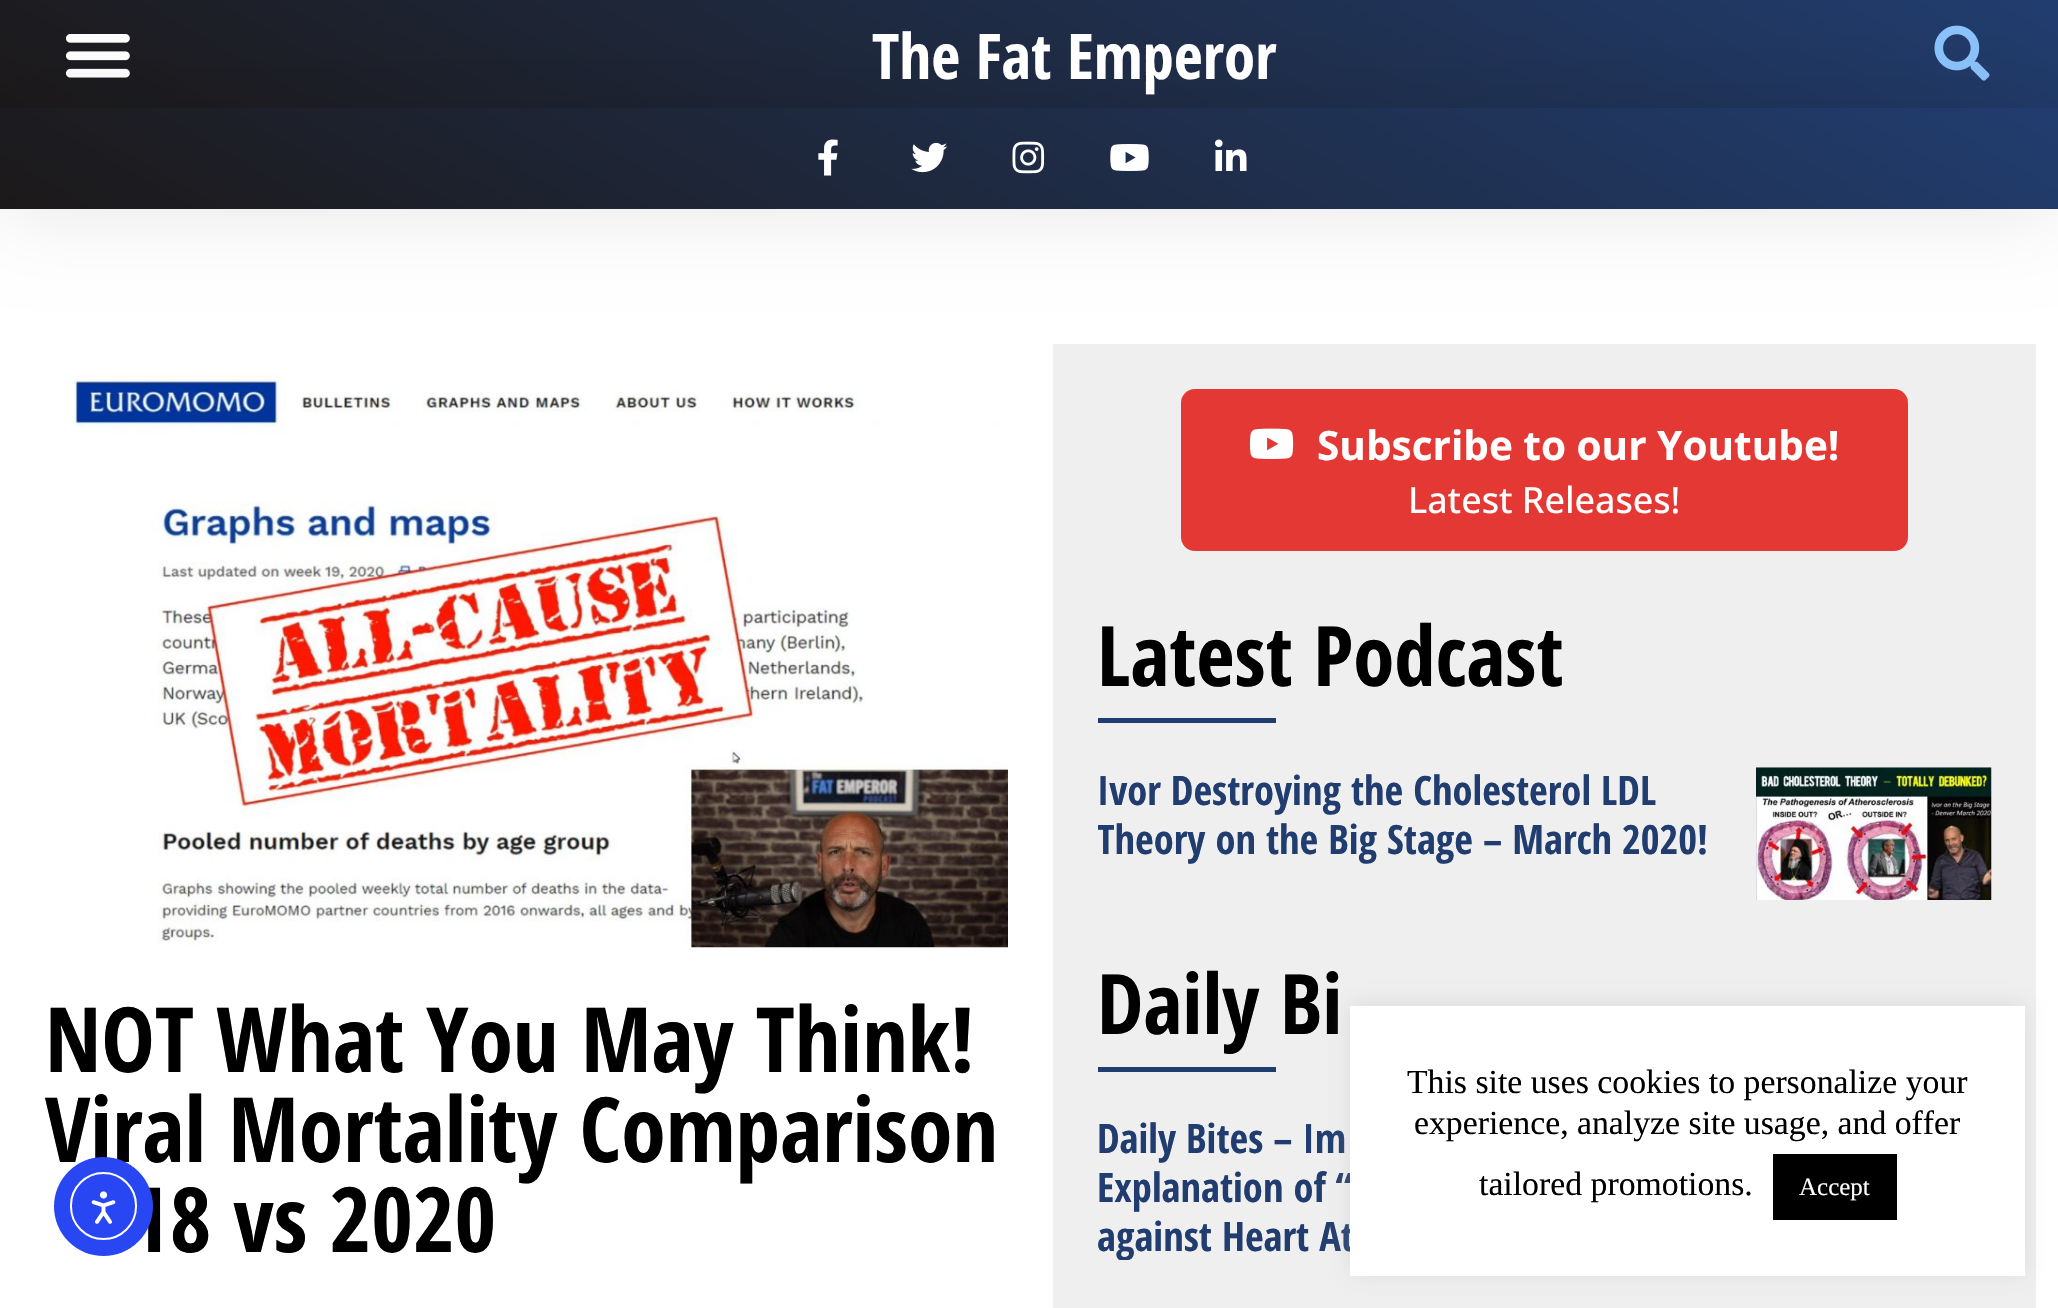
void draw(SkCanvas* canvas) {
	SkPaint paint;
	paint.setAntiAlias(true);
	canvas->clear(0xffffffff);
	{
		const SkColor colors[] = {0xff213d6f, 0xff1c1919};
		const float stops[] = {0, 1};
		const SkPoint ends[] = {{1310, -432}, {749, 540}};
		paint.setShader(SkGradientShader::MakeLinear(ends, colors, stops, 2, SkTileMode::kClamp));
		paint.setAlpha(255);
	}
	canvas->drawRect(SkRect::MakeXYWH(0, 0, 2058, 108), paint);
	canvas->drawImageRect(SkImages::DeferredFromEncodedData(SkData::MakeFromFileName("img6.png")), SkRect::MakeXYWH(65, 34, 65, 44), SkSamplingOptions());
	canvas->drawImageRect(SkImages::DeferredFromEncodedData(SkData::MakeFromFileName("img7.png")), SkRect::MakeXYWH(1934, 25, 56, 56), SkSamplingOptions());
	paint.setShader(nullptr);
	paint.setColor(0x1a000000);
	paint.setMaskFilter(SkMaskFilter::MakeBlur(kNormal_SkBlurStyle, 43));
	canvas->drawRect(SkRect::MakeXYWH(0, 108, 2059, 101), paint);
	paint.setMaskFilter(nullptr);
	{
		const SkColor colors[] = {0xff213d6f, 0xff1c1919};
		const float stops[] = {0, 1};
		const SkPoint ends[] = {{1309, -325}, {750, 642}};
		paint.setShader(SkGradientShader::MakeLinear(ends, colors, stops, 2, SkTileMode::kClamp));
		paint.setAlpha(255);
	}
	canvas->drawRect(SkRect::MakeXYWH(0, 108, 2058, 101), paint);
	canvas->drawImageRect(SkImages::DeferredFromEncodedData(SkData::MakeFromFileName("img1.png")), SkRect::MakeXYWH(818, 139, 20, 37), SkSamplingOptions());
	canvas->drawImageRect(SkImages::DeferredFromEncodedData(SkData::MakeFromFileName("img2.png")), SkRect::MakeXYWH(911, 142, 37, 31), SkSamplingOptions());
	canvas->drawImageRect(SkImages::DeferredFromEncodedData(SkData::MakeFromFileName("img3.png")), SkRect::MakeXYWH(1012, 141, 33, 33), SkSamplingOptions());
	canvas->drawImageRect(SkImages::DeferredFromEncodedData(SkData::MakeFromFileName("img4.png")), SkRect::MakeXYWH(1110, 144, 39, 27), SkSamplingOptions());
	canvas->drawImageRect(SkImages::DeferredFromEncodedData(SkData::MakeFromFileName("img5.png")), SkRect::MakeXYWH(1215, 139, 32, 32), SkSamplingOptions());
	SkFont f1(fontMgr->matchFamilyStyle("Open Sans Condensed", SkFontStyle::Bold()), 63);
	f1.setSubpixel(true);
	paint.setShader(nullptr);
	paint.setColor(0xffffffff);
	canvas->drawString("The Fat Emperor", 872, 79, f1, paint);
	canvas->drawImageRect(SkImages::DeferredFromEncodedData(SkData::MakeFromFileName("img8.png")), SkRect::MakeXYWH(74, 374, 934, 574), SkSamplingOptions());
	SkFont f2(fontMgr->matchFamilyStyle("Open Sans Condensed", SkFontStyle::Bold()), 90);
	f2.setSubpixel(true);
	paint.setColor(0xff000000);
	canvas->drawString("NOT What You May Think!", 45, 1072, f2, paint);
	canvas->drawString("Viral Mortality Comparison", 45, 1162, f2, paint);
	canvas->drawString("18 vs 2020", 128, 1252, f2, paint);
	paint.setColor(0xffefefef);
	canvas->drawRect(SkRect::MakeXYWH(1053, 344, 983, 964), paint);
	paint.setColor(0xffe43834);
	canvas->drawRoundRect(SkRect::MakeXYWH(1181, 389, 727, 162), 14, 14, paint);
	canvas->drawImageRect(SkImages::DeferredFromEncodedData(SkData::MakeFromFileName("img9.png")), SkRect::MakeXYWH(1249, 428, 45, 31), SkSamplingOptions());
	SkFont f3(fontMgr->matchFamilyStyle("Open Sans", SkFontStyle::Bold()), 40.5);
	f3.setSubpixel(true);
	paint.setColor(0xffffffff);
	canvas->drawString("Subscribe to our Youtube!", 1317, 460, f3, paint);
	SkFont f4(fontMgr->matchFamilyStyle("Open Sans", SkFontStyle(500, SkFontStyle::kNormal_Width, SkFontStyle::kUpright_Slant)), 36);
	f4.setSubpixel(true);
	canvas->drawString("Latest Releases!", 1408, 513, f4, paint);
	SkFont f5(fontMgr->matchFamilyStyle("Open Sans Condensed", SkFontStyle::Bold()), 83.25);
	f5.setSubpixel(true);
	paint.setColor(0xff000000);
	canvas->drawString("Latest Podcast", 1097, 686, f5, paint);
	paint.setColor(0xff213d6f);
	canvas->drawRect(SkRect::MakeXYWH(1098, 718, 178, 5), paint);
	SkFont f6(fontMgr->matchFamilyStyle("Open Sans Condensed", SkFontStyle::Bold()), 40.5);
	f6.setSubpixel(true);
	canvas->drawString("Ivor Destroying the Cholesterol LDL", 1097, 805, f6, paint);
	canvas->save();
	canvas->clipRect(SkRect::MakeXYWH(1098, 767, 893, 133));
	canvas->drawString("Theory on the Big Stage – March 2020!", 1097, 854, f6, paint);
	canvas->restore();
	canvas->drawImageRect(SkImages::DeferredFromEncodedData(SkData::MakeFromFileName("img10.png")), SkRect::MakeXYWH(1756, 767, 236, 133), SkSamplingOptions());
	paint.setColor(0xff000000);
	canvas->drawString("Daily Bi", 1097, 1034, f5, paint);
	paint.setColor(0xff213d6f);
	canvas->drawRect(SkRect::MakeXYWH(1098, 1067, 178, 5), paint);
	canvas->drawString("Daily Bites – Im", 1097, 1153, f6, paint);
	canvas->drawString("Explanation of “", 1097, 1202, f6, paint);
	canvas->save();
	canvas->clipRect(SkRect::MakeXYWH(1098, 1116, 893, 144));
	canvas->drawString("against Heart At", 1097, 1251, f6, paint);
	canvas->restore();
	paint.setColor(0xff2847f3);
	canvas->drawCircle(103.5, 1206.5, 49.5, paint);
	paint.setStroke(true);
	paint.setStrokeWidth(2);
	paint.setColor(0xffffffff);
	canvas->drawRoundRect(SkRect::MakeXYWH(71, 1173, 65, 66), 32.5, 32.5, paint);
	canvas->drawImageRect(SkImages::DeferredFromEncodedData(SkData::MakeFromFileName("img11.png")), SkRect::MakeXYWH(91, 1191, 25, 33), SkSamplingOptions());
	paint.setStroke(false);
	paint.setColor(0x4dacabab);
	paint.setMaskFilter(SkMaskFilter::MakeBlur(kNormal_SkBlurStyle, 11));
	canvas->drawRect(SkRect::MakeXYWH(1350, 1004, 675, 270), paint);
	paint.setMaskFilter(nullptr);
	paint.setColor(0xffffffff);
	canvas->drawRect(SkRect::MakeXYWH(1350, 1006, 675, 270), paint);
	SkFont f7(fontMgr->matchFamilyStyle("Liberation Serif", SkFontStyle::Normal()), 33.75);
	f7.setSubpixel(true);
	paint.setColor(0xff000000);
	canvas->drawString("This site uses cookies to personalize your", 1407, 1093, f7, paint);
	canvas->drawString("experience, analyze site usage, and offer", 1414, 1134, f7, paint);
	canvas->drawString("tailored promotions.", 1479, 1195, f7, paint);
	canvas->drawRect(SkRect::MakeXYWH(1773, 1154, 124, 66), paint);
	SkFont f8(fontMgr->matchFamilyStyle("Liberation Serif", SkFontStyle::Normal()), 25);
	f8.setSubpixel(true);
	paint.setColor(0xffffffff);
	canvas->drawString("Accept", 1799, 1195, f8, paint);
}
